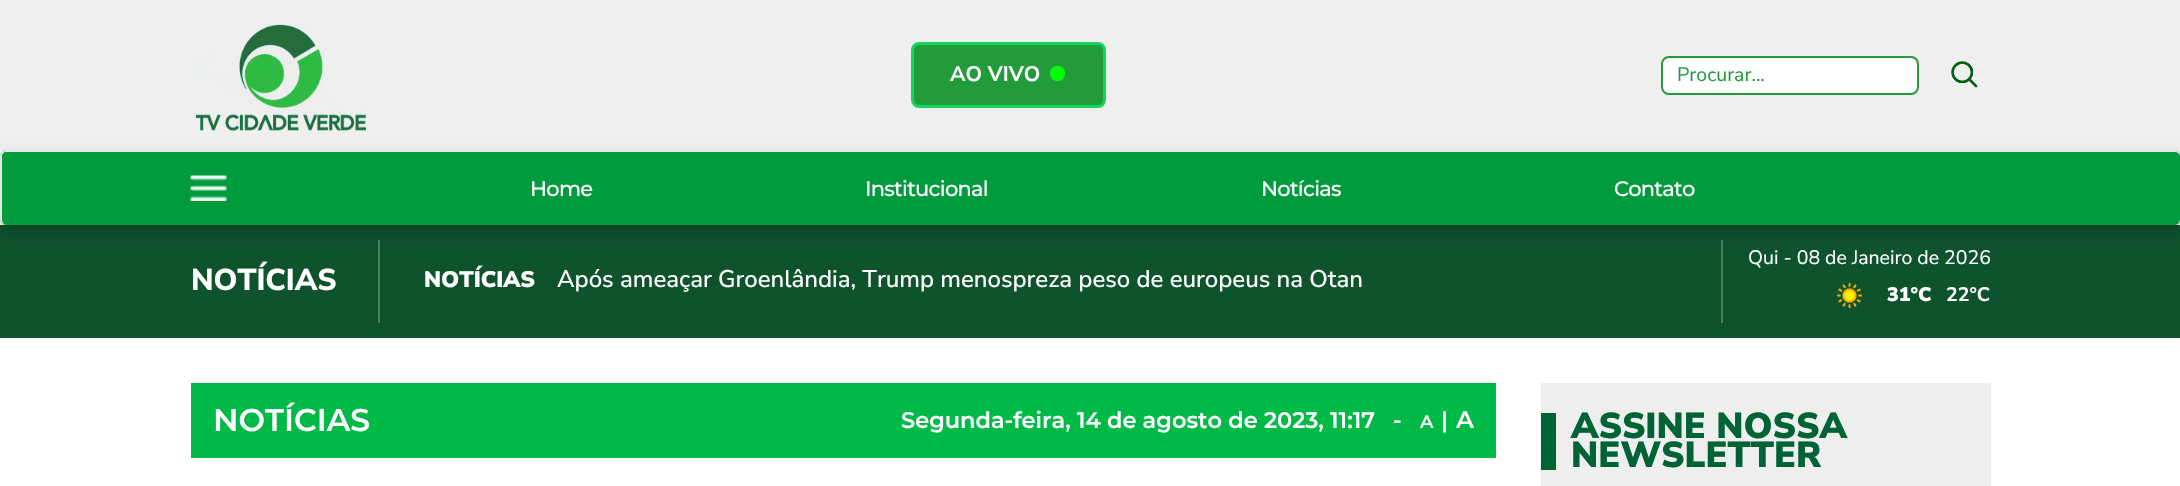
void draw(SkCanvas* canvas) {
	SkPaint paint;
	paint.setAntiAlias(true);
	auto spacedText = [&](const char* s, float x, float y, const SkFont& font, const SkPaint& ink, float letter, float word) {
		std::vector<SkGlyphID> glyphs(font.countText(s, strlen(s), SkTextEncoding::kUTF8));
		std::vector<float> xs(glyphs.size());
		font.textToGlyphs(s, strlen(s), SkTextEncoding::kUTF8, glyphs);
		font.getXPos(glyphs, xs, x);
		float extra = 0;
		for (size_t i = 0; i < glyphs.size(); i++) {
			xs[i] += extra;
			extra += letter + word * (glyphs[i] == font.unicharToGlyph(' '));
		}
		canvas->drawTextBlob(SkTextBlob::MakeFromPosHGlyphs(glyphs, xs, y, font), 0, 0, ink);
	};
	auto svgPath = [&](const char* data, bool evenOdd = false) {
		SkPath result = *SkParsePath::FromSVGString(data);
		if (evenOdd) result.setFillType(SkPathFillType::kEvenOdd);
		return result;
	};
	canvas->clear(0xffffffff);
	paint.setColor(0xffefefef);
	canvas->drawRect(SkRect::MakeXYWH(0, 0, 2180, 150), paint);
	canvas->drawImageRect(SkImages::DeferredFromEncodedData(SkData::MakeFromFileName("img1.png")), SkRect::MakeXYWH(195, 24, 171, 107), SkSamplingOptions());
	paint.setColor(0xff239b3a);
	canvas->drawRoundRect(SkRect::MakeXYWH(912.5, 43.5, 192, 63), 6.5, 6.5, paint);
	paint.setStroke(true);
	paint.setStrokeWidth(3);
	paint.setColor(0xff15d65c);
	canvas->drawRoundRect(SkRect::MakeXYWH(912.5, 43.5, 192, 63), 6.5, 6.5, paint);
	SkFont f1(fontMgr->matchFamilyStyle("Nunito Sans", SkFontStyle::Bold()), 21);
	f1.setSubpixel(true);
	paint.setStroke(false);
	paint.setColor(0xffffffff);
	canvas->drawString("AO VIVO", 950, 81, f1, paint);
	canvas->drawImageRect(SkImages::DeferredFromEncodedData(SkData::MakeFromFileName("img2.png")), SkRect::MakeXYWH(1050, 66, 15, 15), SkSamplingOptions());
	canvas->drawRoundRect(SkRect::MakeXYWH(1662, 57, 256, 37), 7, 7, paint);
	paint.setStroke(true);
	paint.setStrokeWidth(2);
	paint.setColor(0xff239b3a);
	canvas->drawRoundRect(SkRect::MakeXYWH(1662, 57, 256, 37), 7, 7, paint);
	SkFont f2(fontMgr->matchFamilyStyle("Nunito Sans", SkFontStyle::Normal()), 19.5);
	f2.setSubpixel(true);
	paint.setStroke(false);
	canvas->drawString("Procurar...", 1677, 81, f2, paint);
	canvas->drawImageRect(SkImages::DeferredFromEncodedData(SkData::MakeFromFileName("img3.png")), SkRect::MakeXYWH(1951, 61, 27, 27), SkSamplingOptions());
	paint.setColor(0xff0f532d);
	canvas->drawRect(SkRect::MakeXYWH(0, 225, 2180, 113), paint);
	paint.setColor(0xff4b7e62);
	canvas->drawRect(SkRect::MakeXYWH(378, 240, 2, 83), paint);
	canvas->drawRect(SkRect::MakeXYWH(1721, 240, 2, 83), paint);
	paint.setColor(0x33000000);
	paint.setMaskFilter(SkMaskFilter::MakeBlur(kNormal_SkBlurStyle, 7.5));
	canvas->drawRoundRect(SkRect::MakeXYWH(0, 158, 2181, 75), 6, 6, paint);
	paint.setMaskFilter(nullptr);
	paint.setColor(0xff009b3c);
	canvas->drawRoundRect(SkRect::MakeXYWH(0, 150, 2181, 75), 6, 6, paint);
	paint.setColor(0xffe7e7e7);
	canvas->drawPath(svgPath("M6 150H2175C2178 150 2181 153 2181 156V219C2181 222 2178 225 2175 225H6C3 225 0 222 0 219V156C0 153 3 150 6 150ZM6 152H2175C2177 152 2180 154 2180 156V219C2180 222 2177 225 2175 225H6C4 225 2 222 2 219V156C2 154 4 152 6 152Z", true), paint);
	canvas->drawImageRect(SkImages::DeferredFromEncodedData(SkData::MakeFromFileName("img4.png")), SkRect::MakeXYWH(190, 175, 37, 26), SkSamplingOptions());
	SkFont f3(fontMgr->matchFamilyStyle("Montserrat", SkFontStyle(500, SkFontStyle::kNormal_Width, SkFontStyle::kUpright_Slant)), 21);
	f3.setSubpixel(true);
	paint.setColor(0xffffffff);
	spacedText("Home", 530, 196, f3, paint, -0.75, 0);
	spacedText("Institucional", 865, 196, f3, paint, -0.75, 0);
	spacedText("Notícias", 1261, 196, f3, paint, -0.75, 0);
	spacedText("Contato", 1614, 196, f3, paint, -0.75, 0);
	SkFont f4(fontMgr->matchFamilyStyle("Nunito Sans", SkFontStyle(800, SkFontStyle::kNormal_Width, SkFontStyle::kUpright_Slant)), 30);
	f4.setSubpixel(true);
	canvas->drawString("NOTÍCIAS", 191, 290, f4, paint);
	SkFont f5(fontMgr->matchFamilyStyle("Nunito Sans", SkFontStyle(900, SkFontStyle::kNormal_Width, SkFontStyle::kUpright_Slant)), 22.5);
	f5.setSubpixel(true);
	canvas->drawString("NOTÍCIAS", 424, 287, f5, paint);
	SkFont f6(fontMgr->matchFamilyStyle("Nunito Sans", SkFontStyle(500, SkFontStyle::kNormal_Width, SkFontStyle::kUpright_Slant)), 24);
	f6.setSubpixel(true);
	canvas->drawString("Após ameaçar Groenlândia, Trump menospreza peso de europeus na Otan", 557, 287, f6, paint);
	canvas->drawString("Qui - 08 de Janeiro de 2026", 1748, 264, f2, paint);
	canvas->drawImageRect(SkImages::DeferredFromEncodedData(SkData::MakeFromFileName("img5.png")), SkRect::MakeXYWH(1837, 283, 26, 26), SkSamplingOptions());
	SkFont f7(fontMgr->matchFamilyStyle("Nunito Sans", SkFontStyle(900, SkFontStyle::kNormal_Width, SkFontStyle::kUpright_Slant)), 19.5);
	f7.setSubpixel(true);
	canvas->drawString("31°C", 1887, 301, f7, paint);
	SkFont f8(fontMgr->matchFamilyStyle("Nunito Sans", SkFontStyle::Bold()), 19.5);
	f8.setSubpixel(true);
	canvas->drawString("22°C", 1946, 301, f8, paint);
	paint.setColor(0xff00ba47);
	canvas->drawRect(SkRect::MakeXYWH(191, 383, 1305, 75), paint);
	SkFont f9(fontMgr->matchFamilyStyle("Montserrat", SkFontStyle(600, SkFontStyle::kNormal_Width, SkFontStyle::kUpright_Slant)), 31.5);
	f9.setSubpixel(true);
	paint.setColor(0xffffffff);
	canvas->drawString("NOTÍCIAS", 213, 431, f9, paint);
	SkFont f10(fontMgr->matchFamilyStyle("Montserrat", SkFontStyle(600, SkFontStyle::kNormal_Width, SkFontStyle::kUpright_Slant)), 22.5);
	f10.setSubpixel(true);
	canvas->drawString("Segunda-feira, 14 de agosto de 2023, 11:17", 901, 428, f10, paint);
	canvas->drawString("-", 1393, 428, f10, paint);
	SkFont f11(fontMgr->matchFamilyStyle("Montserrat", SkFontStyle(600, SkFontStyle::kNormal_Width, SkFontStyle::kUpright_Slant)), 18);
	f11.setSubpixel(true);
	canvas->drawString("A", 1420, 428, f11, paint);
	canvas->drawString("|", 1441, 428, f10, paint);
	SkFont f12(fontMgr->matchFamilyStyle("Montserrat", SkFontStyle(600, SkFontStyle::kNormal_Width, SkFontStyle::kUpright_Slant)), 24);
	f12.setSubpixel(true);
	canvas->drawString("A", 1456, 428, f12, paint);
	paint.setColor(0xffeeeeee);
	canvas->drawRect(SkRect::MakeXYWH(1541, 383, 450, 103), paint);
	paint.setColor(0xff006335);
	canvas->drawRect(SkRect::MakeXYWH(1541, 413, 15, 57), paint);
	SkFont f13(fontMgr->matchFamilyStyle("Nunito Sans", SkFontStyle(900, SkFontStyle::kNormal_Width, SkFontStyle::kUpright_Slant)), 36);
	f13.setSubpixel(true);
	canvas->drawString("ASSINE NOSSA", 1571, 438, f13, paint);
	canvas->drawString("NEWSLETTER", 1571, 467, f13, paint);
}
